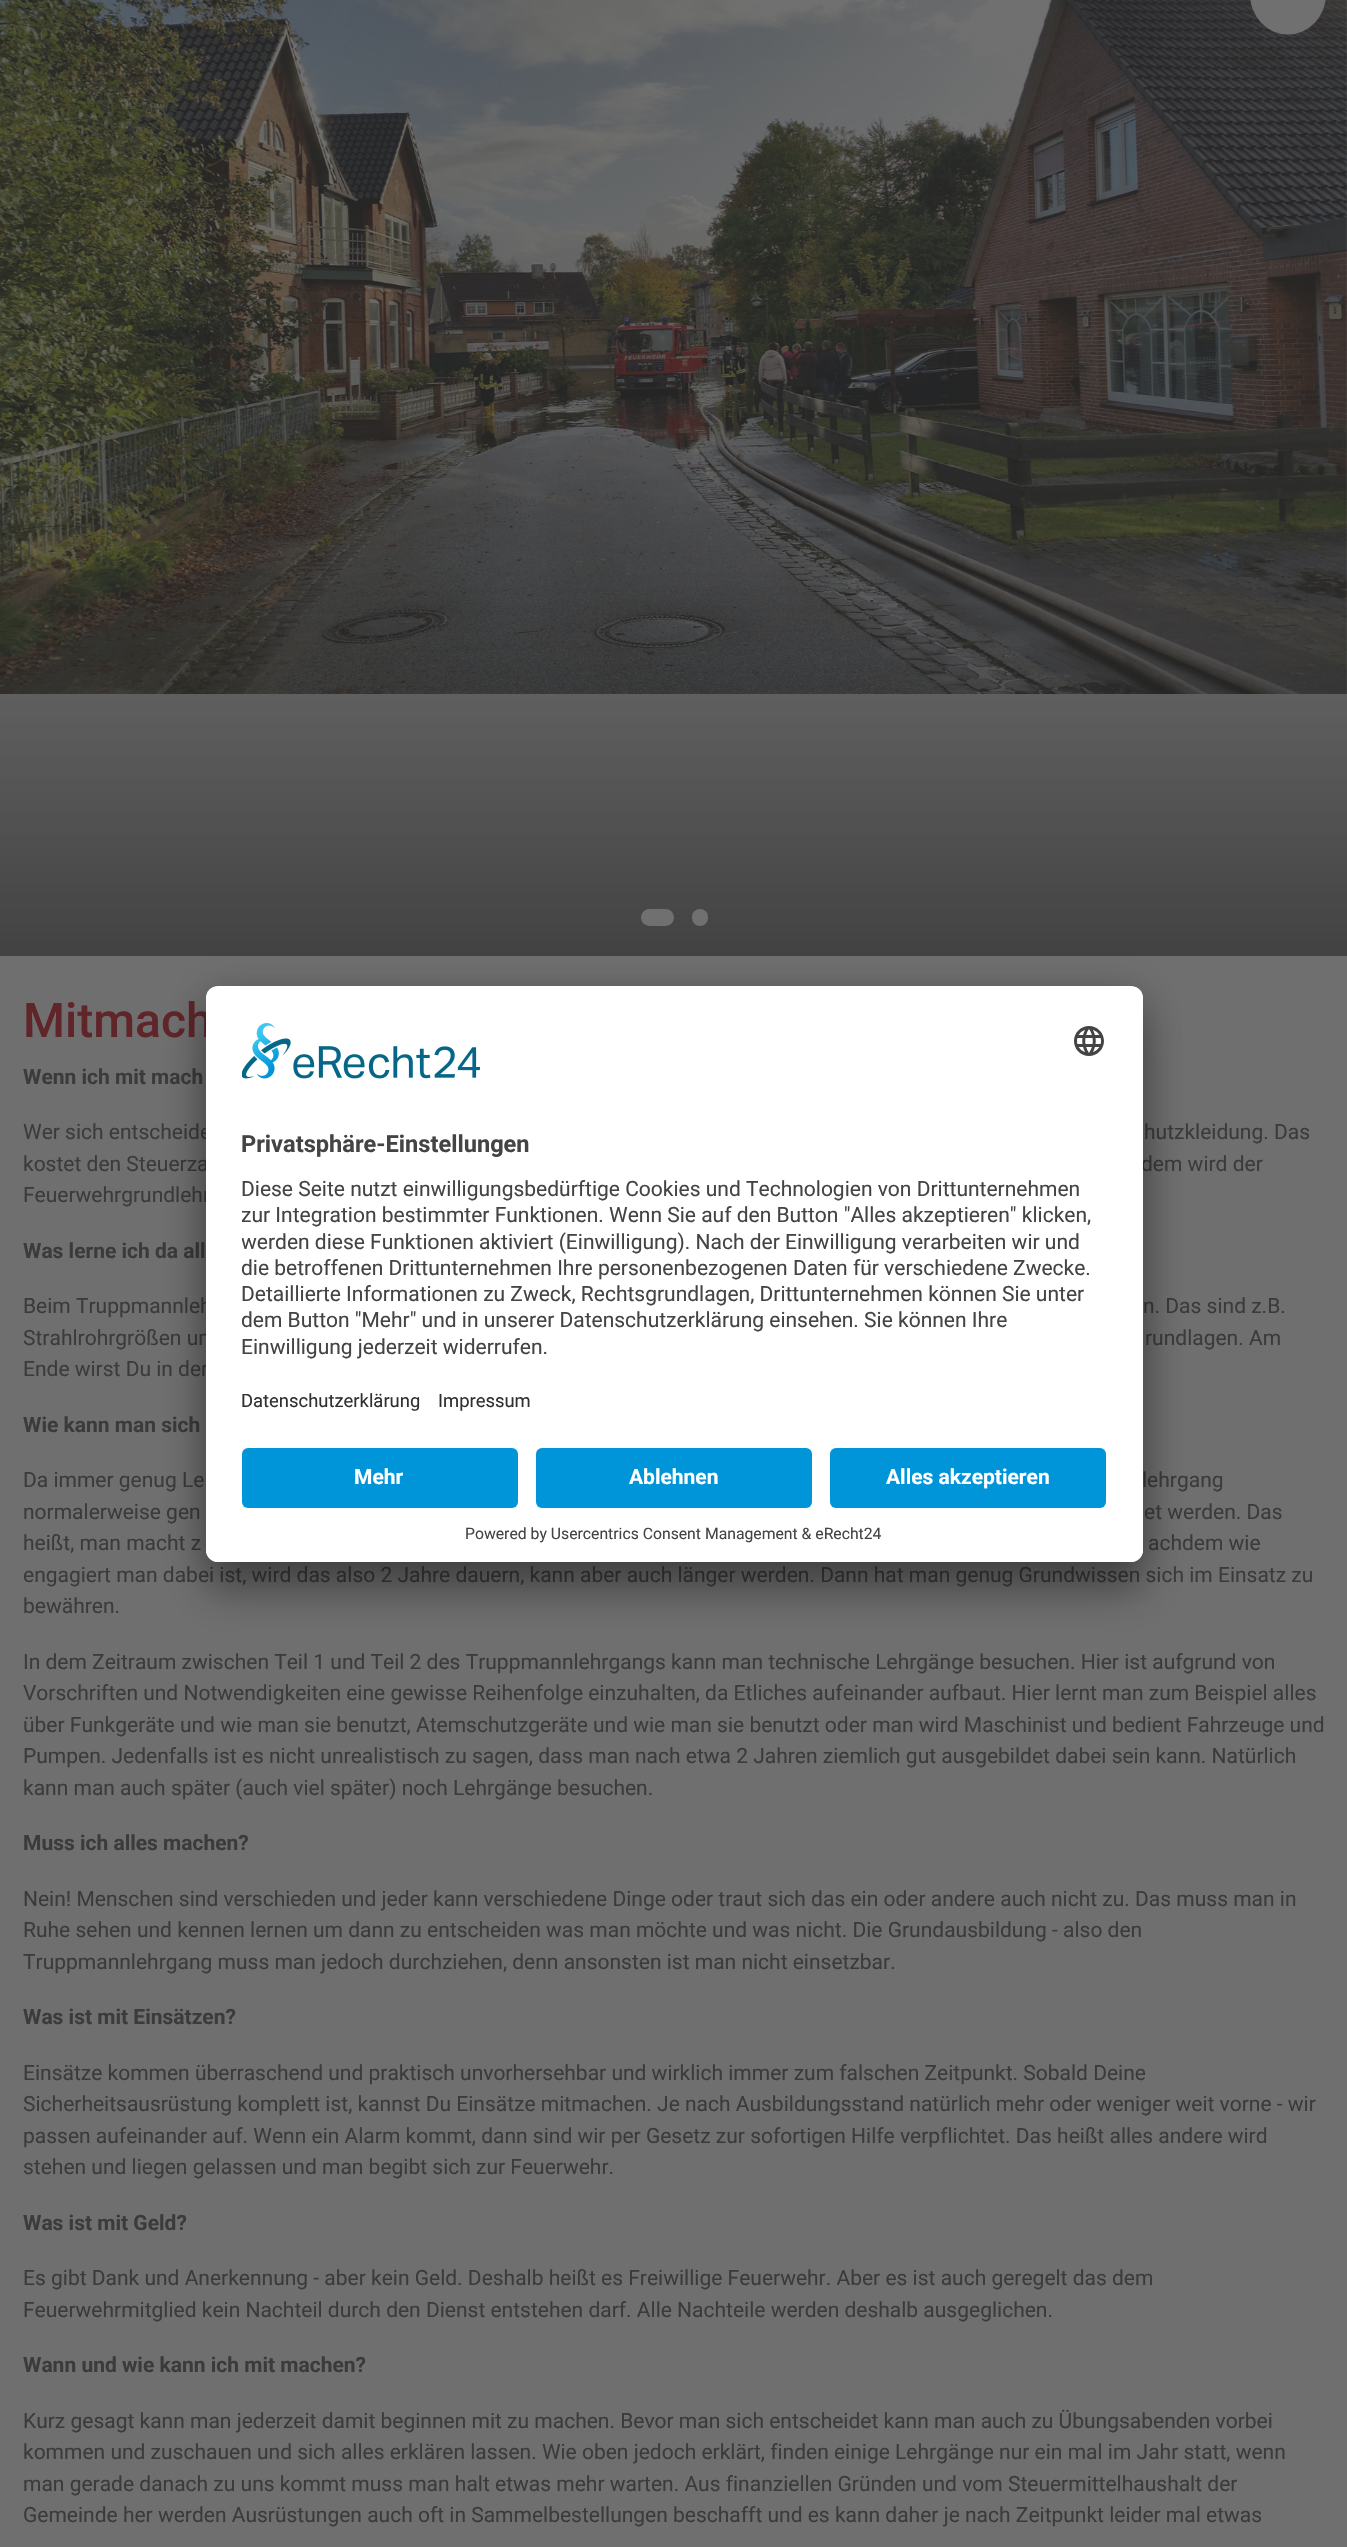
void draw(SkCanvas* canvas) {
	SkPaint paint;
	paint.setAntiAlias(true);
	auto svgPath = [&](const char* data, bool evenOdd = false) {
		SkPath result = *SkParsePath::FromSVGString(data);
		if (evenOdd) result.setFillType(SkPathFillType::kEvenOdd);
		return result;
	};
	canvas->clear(0xff6f6f70);
	canvas->drawImageRect(SkImages::DeferredFromEncodedData(SkData::MakeFromFileName("img1.png")), SkRect::MakeXYWH(0, 0, 1347, 694), SkSamplingOptions());
	{
		const SkColor colors[] = {0x00242424, 0x99242424};
		const float stops[] = {0, 1};
		const SkPoint ends[] = {{674, 549}, {674, 956}};
		paint.setShader(SkGradientShader::MakeLinear(ends, colors, stops, 2, SkTileMode::kClamp));
		paint.setAlpha(255);
	}
	canvas->drawRect(SkRect::MakeXYWH(0, 573, 1347, 383), paint);
	paint.setShader(nullptr);
	paint.setColor(0xff707070);
	canvas->drawRoundRect(SkRect::MakeXYWH(641, 909, 33, 17), 8.5, 8.5, paint);
	canvas->drawRoundRect(SkRect::MakeXYWH(692, 909, 16, 17), 8, 8, paint);
	canvas->drawOval(SkRect::MakeXYWH(1250, -46.5, 76, 81), paint);
	SkFont f1(fontMgr->matchFamilyStyle("Roboto", SkFontStyle(500, SkFontStyle::kNormal_Width, SkFontStyle::kUpright_Slant)), 48);
	f1.setSubpixel(true);
	paint.setColor(0xff5f2529);
	canvas->drawString("Mitmach", 23, 1037, f1, paint);
	SkFont f2(fontMgr->matchFamilyStyle("Roboto", SkFontStyle::Bold()), 21);
	f2.setSubpixel(true);
	paint.setColor(0xff3b3b3b);
	canvas->drawString("Wenn ich mit mach", 23, 1084, f2, paint);
	SkFont f3(fontMgr->matchFamilyStyle("Roboto", SkFontStyle::Normal()), 21);
	f3.setSubpixel(true);
	canvas->drawString("Wer sich entscheide", 23, 1139, f3, paint);
	canvas->drawString("hutzkleidung. Das", 1144, 1139, f3, paint);
	canvas->drawString("kostet den Steuerza", 23, 1171, f3, paint);
	canvas->drawString("dem wird der", 1141, 1171, f3, paint);
	canvas->drawString("Feuerwehrgrundlehr", 23, 1202, f3, paint);
	canvas->drawString("Was lerne ich da all", 23, 1258, f2, paint);
	canvas->drawString("Beim Truppmannleh", 23, 1313, f3, paint);
	canvas->drawString("n. Das sind z.B.", 1143, 1313, f3, paint);
	canvas->drawString("Strahlrohrgrößen un", 23, 1345, f3, paint);
	canvas->drawString("rundlagen. Am", 1145, 1345, f3, paint);
	canvas->drawString("Ende wirst Du in der", 23, 1376, f3, paint);
	canvas->drawString("Wie kann man sich", 23, 1432, f2, paint);
	canvas->drawString("Da immer genug Le", 23, 1487, f3, paint);
	canvas->drawString("lehrgang", 1142, 1487, f3, paint);
	canvas->drawString("normalerweise gen", 23, 1519, f3, paint);
	canvas->drawString("et werden. Das", 1144, 1519, f3, paint);
	canvas->drawString("heißt, man macht z", 23, 1550, f3, paint);
	canvas->drawString("achdem wie", 1148, 1550, f3, paint);
	canvas->drawString("engagiert man dabei ist, wird das also 2 Jahre dauern, kann aber auch länger werden. Dann hat man genug Grundwissen sich im Einsatz zu", 23, 1582, f3, paint);
	canvas->drawString("bewähren.", 23, 1613, f3, paint);
	canvas->drawString("In dem Zeitraum zwischen Teil 1 und Teil 2 des Truppmannlehrgangs kann man technische Lehrgänge besuchen. Hier ist aufgrund von", 23, 1669, f3, paint);
	canvas->drawString("Vorschriften und Notwendigkeiten eine gewisse Reihenfolge einzuhalten, da Etliches aufeinander aufbaut. Hier lernt man zum Beispiel alles", 23, 1700, f3, paint);
	canvas->drawString("über Funkgeräte und wie man sie benutzt, Atemschutzgeräte und wie man sie benutzt oder man wird Maschinist und bedient Fahrzeuge und", 23, 1732, f3, paint);
	canvas->drawString("Pumpen. Jedenfalls ist es nicht unrealistisch zu sagen, dass man nach etwa 2 Jahren ziemlich gut ausgebildet dabei sein kann. Natürlich", 23, 1763, f3, paint);
	canvas->drawString("kann man auch später (auch viel später) noch Lehrgänge besuchen.", 23, 1795, f3, paint);
	canvas->drawString("Muss ich alles machen?", 23, 1850, f2, paint);
	canvas->drawString("Nein! Menschen sind verschieden und jeder kann verschiedene Dinge oder traut sich das ein oder andere auch nicht zu. Das muss man in", 23, 1906, f3, paint);
	canvas->drawString("Ruhe sehen und kennen lernen um dann zu entscheiden was man möchte und was nicht. Die Grundausbildung - also den", 23, 1937, f3, paint);
	canvas->drawString("Truppmannlehrgang muss man jedoch durchziehen, denn ansonsten ist man nicht einsetzbar.", 23, 1969, f3, paint);
	canvas->drawString("Was ist mit Einsätzen?", 23, 2024, f2, paint);
	canvas->drawString("Einsätze kommen überraschend und praktisch unvorhersehbar und wirklich immer zum falschen Zeitpunkt. Sobald Deine", 23, 2080, f3, paint);
	canvas->drawString("Sicherheitsausrüstung komplett ist, kannst Du Einsätze mitmachen. Je nach Ausbildungsstand natürlich mehr oder weniger weit vorne - wir", 23, 2111, f3, paint);
	canvas->drawString("passen aufeinander auf. Wenn ein Alarm kommt, dann sind wir per Gesetz zur sofortigen Hilfe verpflichtet. Das heißt alles andere wird", 23, 2143, f3, paint);
	canvas->drawString("stehen und liegen gelassen und man begibt sich zur Feuerwehr.", 23, 2174, f3, paint);
	canvas->drawString("Was ist mit Geld?", 23, 2230, f2, paint);
	canvas->drawString("Es gibt Dank und Anerkennung - aber kein Geld. Deshalb heißt es Freiwillige Feuerwehr. Aber es ist auch geregelt das dem", 23, 2285, f3, paint);
	canvas->drawString("Feuerwehrmitglied kein Nachteil durch den Dienst entstehen darf. Alle Nachteile werden deshalb ausgeglichen.", 23, 2317, f3, paint);
	canvas->drawString("Wann und wie kann ich mit machen?", 23, 2372, f2, paint);
	canvas->drawString("Kurz gesagt kann man jederzeit damit beginnen mit zu machen. Bevor man sich entscheidet kann man auch zu Übungsabenden vorbei", 23, 2428, f3, paint);
	canvas->drawString("kommen und zuschauen und sich alles erklären lassen. Wie oben jedoch erklärt, finden einige Lehrgänge nur ein mal im Jahr statt, wenn", 23, 2459, f3, paint);
	canvas->drawString("man gerade danach zu uns kommt muss man halt etwas mehr warten. Aus finanziellen Gründen und vom Steuermittelhaushalt der", 23, 2491, f3, paint);
	canvas->drawString("Gemeinde her werden Ausrüstungen auch oft in Sammelbestellungen beschafft und es kann daher je nach Zeitpunkt leider mal etwas", 23, 2522, f3, paint);
	paint.setColor(0x4d000000);
	paint.setMaskFilter(SkMaskFilter::MakeBlur(kNormal_SkBlurStyle, 21));
	canvas->drawRoundRect(SkRect::MakeXYWH(206, 1016, 937, 576), 12, 12, paint);
	paint.setMaskFilter(nullptr);
	paint.setColor(0x38000000);
	paint.setMaskFilter(SkMaskFilter::MakeBlur(kNormal_SkBlurStyle, 19.5));
	canvas->drawRoundRect(SkRect::MakeXYWH(206, 993, 937, 576), 12, 12, paint);
	paint.setMaskFilter(nullptr);
	paint.setColor(0xffffffff);
	canvas->drawRoundRect(SkRect::MakeXYWH(206, 986, 937, 576), 12, 12, paint);
	canvas->save();
	canvas->clipPath(svgPath("M218 986H1131C1137.5 986 1143 991.5 1143 998V1550C1143 1556.5 1137.5 1562 1131 1562H218C211.5 1562 206 1556.5 206 1550V998C206 991.5 211.5 986 218 986Z"), true);
	canvas->clipPath(svgPath("M218 986H1131C1137.5 986 1143 991.5 1143 998V1436H206V998C206 991.5 211.5 986 218 986Z"), true);
	canvas->drawRect(SkRect::MakeXYWH(206, 987, 937, 449), paint);
	canvas->restore();
	canvas->drawImageRect(SkImages::DeferredFromEncodedData(SkData::MakeFromFileName("img2.png")), SkRect::MakeXYWH(242, 1023, 238, 56), SkSamplingOptions());
	canvas->drawImageRect(SkImages::DeferredFromEncodedData(SkData::MakeFromFileName("img3.png")), SkRect::MakeXYWH(1074, 1026, 30, 30), SkSamplingOptions());
	SkFont f4(fontMgr->matchFamilyStyle("Roboto", SkFontStyle::Bold()), 23.6);
	f4.setSubpixel(true);
	paint.setColor(0xff444444);
	canvas->drawString("Privatsphäre-Einstellungen", 241, 1152, f4, paint);
	canvas->drawString("Diese Seite nutzt einwilligungsbedürftige Cookies und Technologien von Drittunternehmen", 241, 1196, f3, paint);
	canvas->save();
	canvas->clipRect(SkRect::MakeXYWH(242, 1170, 865, 197));
	canvas->drawString("zur Integration bestimmter Funktionen. Wenn Sie auf den Button \"Alles akzeptieren\" klicken,", 241, 1222, f3, paint);
	canvas->drawString("werden diese Funktionen aktiviert (Einwilligung). Nach der Einwilligung verarbeiten wir und", 241, 1249, f3, paint);
	canvas->drawString("die betroffenen Drittunternehmen Ihre personenbezogenen Daten für verschiedene Zwecke.", 241, 1275, f3, paint);
	canvas->restore();
	canvas->drawString("Detaillierte Informationen zu Zweck, Rechtsgrundlagen, Drittunternehmen können Sie unter", 241, 1301, f3, paint);
	canvas->save();
	canvas->clipRect(SkRect::MakeXYWH(242, 1170, 865, 197));
	canvas->drawString("dem Button \"Mehr\" und in unserer Datenschutzerklärung einsehen. Sie können Ihre", 241, 1327, f3, paint);
	canvas->restore();
	canvas->drawString("Einwilligung jederzeit widerrufen.", 241, 1354, f3, paint);
	SkFont f5(fontMgr->matchFamilyStyle("Roboto", SkFontStyle::Normal()), 18.4);
	f5.setSubpixel(true);
	paint.setColor(0xff303030);
	canvas->drawString("Datenschutzerklärung", 241, 1407, f5, paint);
	canvas->drawString("Impressum", 438, 1407, f5, paint);
	paint.setColor(0xffffffff);
	canvas->drawPath(svgPath("M206 1436H1143V1550C1143 1556.5 1137.5 1562 1131 1562H218C211.5 1562 206 1556.5 206 1550Z"), paint);
	paint.setColor(0xff0094d8);
	canvas->drawRoundRect(SkRect::MakeXYWH(242, 1448, 276, 60), 6, 6, paint);
	paint.setColor(0xffffffff);
	canvas->drawString("Mehr", 354, 1484, f2, paint);
	paint.setColor(0xff0094d8);
	canvas->drawRoundRect(SkRect::MakeXYWH(536, 1448, 276, 60), 6, 6, paint);
	paint.setColor(0xffffffff);
	canvas->drawString("Ablehnen", 629, 1484, f2, paint);
	paint.setColor(0xff0094d8);
	canvas->drawRoundRect(SkRect::MakeXYWH(830, 1448, 276, 60), 6, 6, paint);
	paint.setColor(0xffffffff);
	canvas->drawString("Alles akzeptieren", 886, 1484, f2, paint);
	SkFont f6(fontMgr->matchFamilyStyle("Roboto", SkFontStyle::Normal()), 15.75);
	f6.setSubpixel(true);
	paint.setColor(0xff444444);
	canvas->drawString("Powered by Usercentrics Consent Management & eRecht24", 465, 1539, f6, paint);
}
